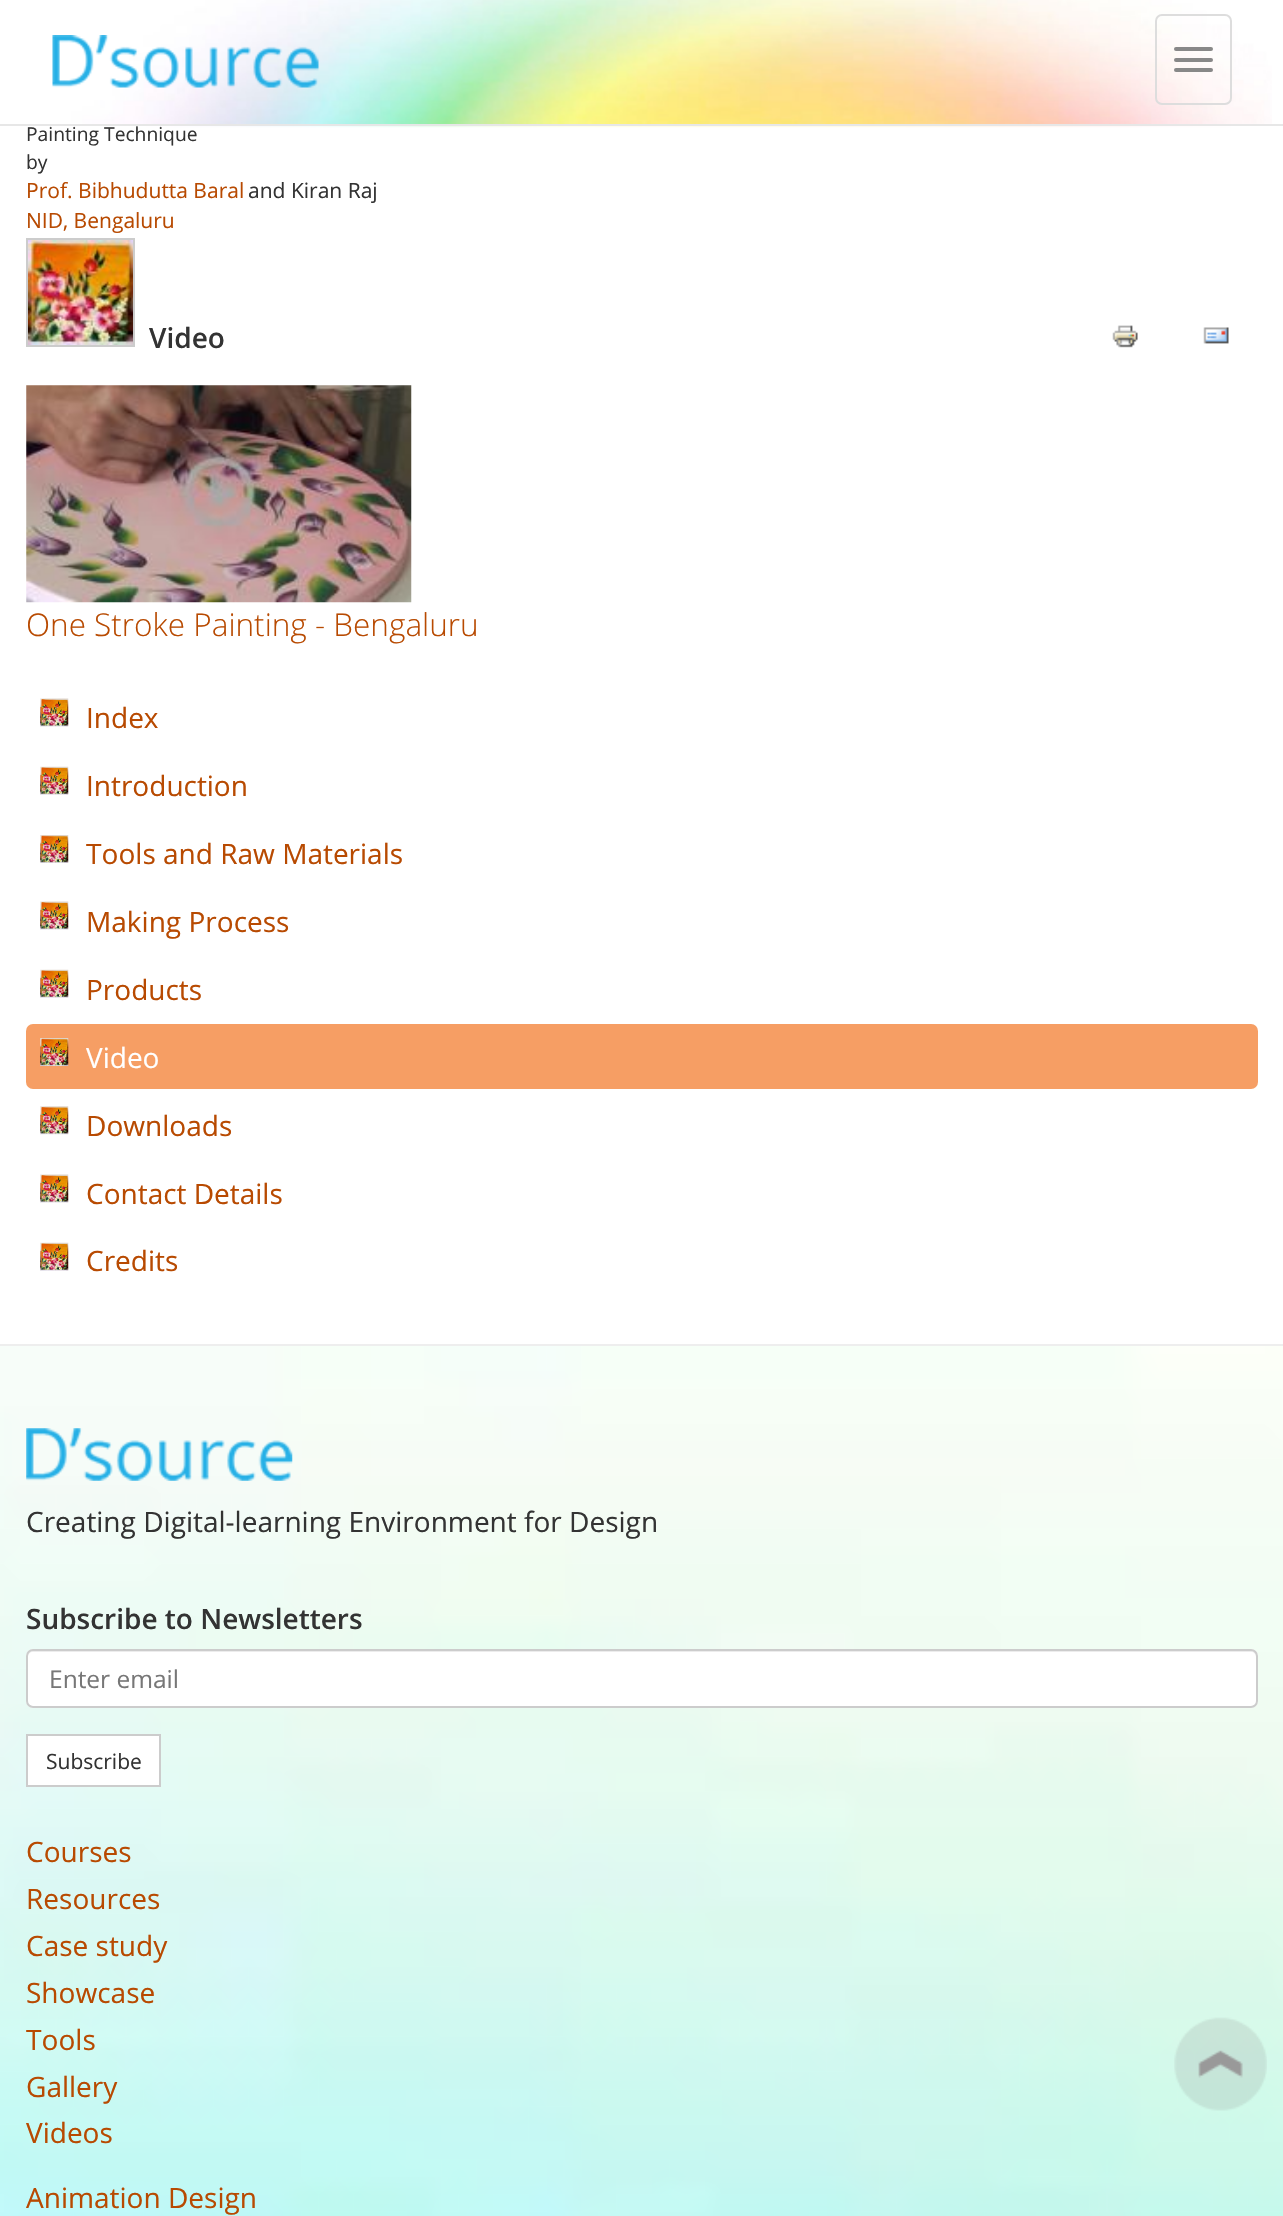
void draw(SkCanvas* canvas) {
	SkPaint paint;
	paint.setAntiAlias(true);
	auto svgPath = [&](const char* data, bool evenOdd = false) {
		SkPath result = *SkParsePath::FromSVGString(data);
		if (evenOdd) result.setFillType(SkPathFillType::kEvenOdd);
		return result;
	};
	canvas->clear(0xffffffff);
	SkFont f1(fontMgr->matchFamilyStyle("Open Sans", SkFontStyle::Normal()), 19.25);
	f1.setSubpixel(true);
	paint.setColor(0xff333333);
	canvas->drawString("Painting Technique", 26, 141, f1, paint);
	canvas->drawImageRect(SkImages::DeferredFromEncodedData(SkData::MakeFromFileName("img1.png")), SkRect::MakeXYWH(26, 0, 1246, 128), SkSamplingOptions());
	paint.setColor(0xffe7e7e7);
	canvas->drawRect(SkRect::MakeXYWH(0, 124, 1283, 2), paint);
	canvas->drawImageRect(SkImages::DeferredFromEncodedData(SkData::MakeFromFileName("img2.png")), SkRect::MakeXYWH(52, 35, 267, 53), SkSamplingOptions());
	paint.setStroke(true);
	paint.setStrokeWidth(2);
	paint.setColor(0xffdddddd);
	canvas->drawRoundRect(SkRect::MakeXYWH(1156, 15, 75, 89), 6, 6, paint);
	paint.setStroke(false);
	paint.setColor(0xff888888);
	canvas->drawRoundRect(SkRect::MakeXYWH(1174, 47, 39, 4), 2, 2, paint);
	canvas->drawRoundRect(SkRect::MakeXYWH(1174, 58, 39, 4), 2, 2, paint);
	canvas->drawRoundRect(SkRect::MakeXYWH(1174, 68, 39, 4), 2, 2, paint);
	paint.setColor(0xff333333);
	canvas->drawString("by", 26, 169, f1, paint);
	SkFont f2(fontMgr->matchFamilyStyle("Open Sans", SkFontStyle::Normal()), 21);
	f2.setSubpixel(true);
	paint.setColor(0xffb84a01);
	canvas->drawString("Prof. Bibhudutta Baral", 26, 198, f2, paint);
	paint.setColor(0xff333333);
	canvas->drawString("and Kiran Raj", 248, 198, f2, paint);
	paint.setColor(0xffb84a01);
	canvas->drawString("NID, Bengaluru", 26, 228, f2, paint);
	paint.setStroke(true);
	paint.setColor(0xffcccccc);
	canvas->drawRect(SkRect::MakeXYWH(27, 239, 107, 107), paint);
	canvas->drawImageRect(SkImages::DeferredFromEncodedData(SkData::MakeFromFileName("img3.png")), SkRect::MakeXYWH(28, 240, 105, 105), SkSamplingOptions());
	SkFont f3(fontMgr->matchFamilyStyle("Open Sans", SkFontStyle(600, SkFontStyle::kNormal_Width, SkFontStyle::kUpright_Slant)), 28);
	f3.setSubpixel(true);
	paint.setStroke(false);
	paint.setColor(0xff333333);
	canvas->drawString("Video", 149, 348, f3, paint);
	canvas->drawImageRect(SkImages::DeferredFromEncodedData(SkData::MakeFromFileName("img4.png")), SkRect::MakeXYWH(1112, 325, 26, 23), SkSamplingOptions());
	canvas->drawImageRect(SkImages::DeferredFromEncodedData(SkData::MakeFromFileName("img5.png")), SkRect::MakeXYWH(1203, 327, 26, 17), SkSamplingOptions());
	canvas->drawImageRect(SkImages::DeferredFromEncodedData(SkData::MakeFromFileName("img6.png")), SkRect::MakeXYWH(26, 385, 386, 218), SkSamplingOptions());
	SkFont f4(fontMgr->matchFamilyStyle("Open Sans", SkFontStyle(300, SkFontStyle::kNormal_Width, SkFontStyle::kUpright_Slant)), 31.5);
	f4.setSubpixel(true);
	paint.setColor(0xffb84a01);
	canvas->drawString("One Stroke Painting - Bengaluru", 26, 636, f4, paint);
	canvas->drawImageRect(SkImages::DeferredFromEncodedData(SkData::MakeFromFileName("img7.png")), SkRect::MakeXYWH(40, 698, 29, 29), SkSamplingOptions());
	SkFont f5(fontMgr->matchFamilyStyle("Open Sans", SkFontStyle::Normal()), 28);
	f5.setSubpixel(true);
	canvas->drawString("Index", 86, 728, f5, paint);
	canvas->drawImageRect(SkImages::DeferredFromEncodedData(SkData::MakeFromFileName("img8.png")), SkRect::MakeXYWH(40, 766, 29, 29), SkSamplingOptions());
	canvas->drawString("Introduction", 86, 796, f5, paint);
	canvas->drawImageRect(SkImages::DeferredFromEncodedData(SkData::MakeFromFileName("img9.png")), SkRect::MakeXYWH(40, 835, 29, 28), SkSamplingOptions());
	canvas->drawString("Tools and Raw Materials", 86, 864, f5, paint);
	canvas->drawImageRect(SkImages::DeferredFromEncodedData(SkData::MakeFromFileName("img7.png")), SkRect::MakeXYWH(40, 901, 29, 29), SkSamplingOptions());
	canvas->drawString("Making Process", 86, 932, f5, paint);
	canvas->drawImageRect(SkImages::DeferredFromEncodedData(SkData::MakeFromFileName("img8.png")), SkRect::MakeXYWH(40, 969, 29, 29), SkSamplingOptions());
	canvas->drawString("Products", 86, 1000, f5, paint);
	paint.setColor(0xfff69e64);
	canvas->drawRoundRect(SkRect::MakeXYWH(26, 1024, 1232, 65), 7, 7, paint);
	canvas->drawImageRect(SkImages::DeferredFromEncodedData(SkData::MakeFromFileName("img10.png")), SkRect::MakeXYWH(40, 1038, 29, 28), SkSamplingOptions());
	paint.setColor(0xffffffff);
	canvas->drawString("Video", 86, 1068, f5, paint);
	canvas->drawImageRect(SkImages::DeferredFromEncodedData(SkData::MakeFromFileName("img11.png")), SkRect::MakeXYWH(40, 1106, 29, 29), SkSamplingOptions());
	paint.setColor(0xffb84a01);
	canvas->drawString("Downloads", 86, 1136, f5, paint);
	canvas->drawImageRect(SkImages::DeferredFromEncodedData(SkData::MakeFromFileName("img7.png")), SkRect::MakeXYWH(40, 1174, 29, 29), SkSamplingOptions());
	canvas->drawString("Contact Details", 86, 1204, f5, paint);
	canvas->drawImageRect(SkImages::DeferredFromEncodedData(SkData::MakeFromFileName("img8.png")), SkRect::MakeXYWH(40, 1242, 29, 29), SkSamplingOptions());
	canvas->drawString("Credits", 86, 1271, f5, paint);
	canvas->drawImageRect(SkImages::DeferredFromEncodedData(SkData::MakeFromFileName("img12.png")), SkRect::MakeXYWH(0, 1346, 1283, 870), SkSamplingOptions());
	paint.setColor(0xffeeeeee);
	canvas->drawRect(SkRect::MakeXYWH(0, 1344, 1283, 2), paint);
	canvas->drawImageRect(SkImages::DeferredFromEncodedData(SkData::MakeFromFileName("img13.png")), SkRect::MakeXYWH(26, 1428, 267, 53), SkSamplingOptions());
	paint.setColor(0xff333333);
	canvas->drawString("Creating Digital-learning Environment for Design", 26, 1532, f5, paint);
	canvas->drawString("Subscribe to Newsletters", 26, 1629, f3, paint);
	paint.setColor(0xffffffff);
	canvas->drawRoundRect(SkRect::MakeXYWH(26, 1649, 1232, 59), 7, 7, paint);
	paint.setColor(0xffececec);
	canvas->drawPath(svgPath("M33 1652H1251C1254 1652 1256 1654 1256 1657V1704C1257 1703 1257 1702 1257 1701V1655C1257 1652 1255 1650 1252 1650H33C30 1650 28 1652 28 1655V1657C28 1654 30 1652 33 1652Z"), paint);
	paint.setStroke(true);
	paint.setColor(0xffcccccc);
	canvas->drawRoundRect(SkRect::MakeXYWH(27, 1650, 1230, 57), 6, 6, paint);
	SkFont f6(fontMgr->matchFamilyStyle("Open Sans", SkFontStyle::Normal()), 24.5);
	f6.setSubpixel(true);
	paint.setStroke(false);
	paint.setColor(0xff777777);
	canvas->drawString("Enter email", 49, 1688, f6, paint);
	paint.setColor(0xffffffff);
	canvas->drawRect(SkRect::MakeXYWH(27, 1735, 133, 51), paint);
	paint.setStroke(true);
	paint.setColor(0xffcccccc);
	canvas->drawRect(SkRect::MakeXYWH(27, 1735, 133, 51), paint);
	paint.setStroke(false);
	paint.setColor(0xff333333);
	canvas->drawString("Subscribe", 46, 1769, f2, paint);
	paint.setColor(0xffb84a01);
	canvas->drawString("Courses", 26, 1862, f5, paint);
	canvas->drawString("Resources", 26, 1909, f5, paint);
	canvas->drawString("Case study", 26, 1956, f5, paint);
	canvas->drawString("Showcase", 26, 2003, f5, paint);
	canvas->drawString("Tools", 26, 2050, f5, paint);
	canvas->drawString("Gallery", 26, 2097, f5, paint);
	canvas->drawString("Videos", 26, 2143, f5, paint);
	canvas->drawString("Animation Design", 26, 2208, f5, paint);
	canvas->drawImageRect(SkImages::DeferredFromEncodedData(SkData::MakeFromFileName("img14.png")), SkRect::MakeXYWH(1174, 2017, 93, 94), SkSamplingOptions());
}
